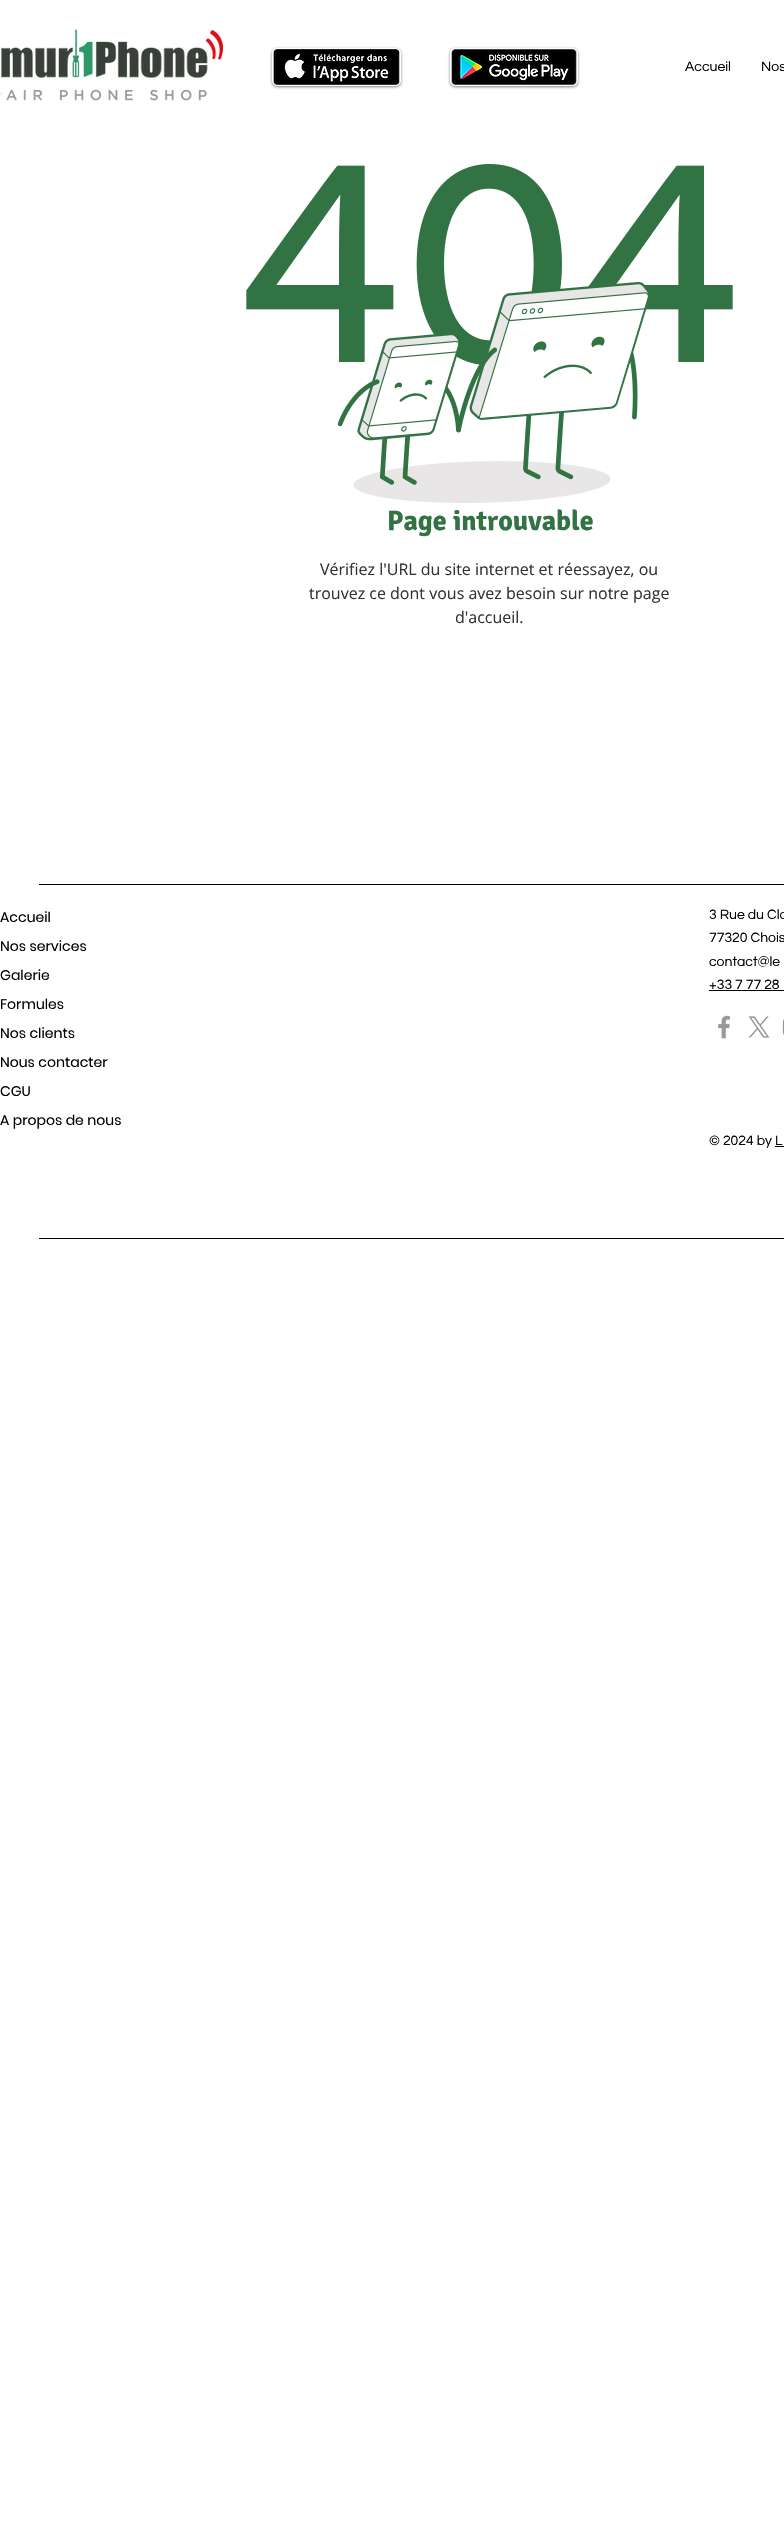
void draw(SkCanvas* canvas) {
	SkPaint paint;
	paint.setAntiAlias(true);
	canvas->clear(0xffffffff);
	canvas->drawImageRect(SkImages::DeferredFromEncodedData(SkData::MakeFromFileName("img1.png")), SkRect::MakeXYWH(0, 29, 223, 72), SkSamplingOptions());
	paint.setColor(0x80000000);
	paint.setMaskFilter(SkMaskFilter::MakeBlur(kNormal_SkBlurStyle, 1.5));
	canvas->drawRoundRect(SkRect::MakeXYWH(272, 49, 129, 38), 5, 5, paint);
	paint.setMaskFilter(nullptr);
	paint.setColor(0xffffffff);
	canvas->drawRoundRect(SkRect::MakeXYWH(272.5, 48.5, 128, 37), 4.5, 4.5, paint);
	paint.setStroke(true);
	paint.setStrokeWidth(1);
	canvas->drawRoundRect(SkRect::MakeXYWH(272.5, 48.5, 128, 37), 4.5, 4.5, paint);
	canvas->drawImageRect(SkImages::DeferredFromEncodedData(SkData::MakeFromFileName("img2.png")), SkRect::MakeXYWH(273, 49, 127, 36), SkSamplingOptions());
	paint.setStroke(false);
	paint.setColor(0x80000000);
	paint.setMaskFilter(SkMaskFilter::MakeBlur(kNormal_SkBlurStyle, 1.5));
	canvas->drawRoundRect(SkRect::MakeXYWH(450, 49, 128, 38), 5, 5, paint);
	paint.setMaskFilter(nullptr);
	paint.setColor(0xffffffff);
	canvas->drawRoundRect(SkRect::MakeXYWH(450.5, 48.5, 127, 37), 4.5, 4.5, paint);
	paint.setStroke(true);
	canvas->drawRoundRect(SkRect::MakeXYWH(450.5, 48.5, 127, 37), 4.5, 4.5, paint);
	canvas->drawImageRect(SkImages::DeferredFromEncodedData(SkData::MakeFromFileName("img3.png")), SkRect::MakeXYWH(451, 49, 126, 36), SkSamplingOptions());
	SkFont f1(fontMgr->matchFamilyStyle("Questrial", SkFontStyle::Normal()), 14);
	f1.setSubpixel(true);
	paint.setStroke(false);
	paint.setColor(0xff000000);
	canvas->drawString("Accueil", 685, 71, f1, paint);
	canvas->drawString("Nos", 761, 71, f1, paint);
	canvas->drawImageRect(SkImages::DeferredFromEncodedData(SkData::MakeFromFileName("img4.png")), SkRect::MakeXYWH(246, 164, 487, 339), SkSamplingOptions());
	SkFont f2(fontMgr->matchFamilyStyle("Signika", SkFontStyle::Bold()), 28);
	f2.setSubpixel(true);
	paint.setColor(0xff317343);
	canvas->drawString("Page introuvable", 387, 530, f2, paint);
	SkFont f3(fontMgr->matchFamilyStyle("Open Sans", SkFontStyle::Normal()), 16);
	f3.setSubpixel(true);
	paint.setColor(0xff333333);
	canvas->drawString("Vérifiez l'URL du site internet et réessayez, ou", 320, 575, f3, paint);
	canvas->drawString("trouvez ce dont vous avez besoin sur notre page", 309, 599, f3, paint);
	canvas->drawString("d'accueil.", 455, 623, f3, paint);
	paint.setColor(0xff000000);
	canvas->drawRect(SkRect::MakeXYWH(39, 884, 745, 1), paint);
	SkFont f4(fontMgr->matchFamilyStyle("Poppins", SkFontStyle::Normal()), 14);
	f4.setSubpixel(true);
	canvas->drawString("Accueil", 0, 922, f4, paint);
	canvas->drawString("Nos services", 0, 951, f4, paint);
	canvas->drawString("Galerie", 0, 980, f4, paint);
	canvas->drawString("Formules", 0, 1009, f4, paint);
	canvas->drawString("Nos clients", 0, 1038, f4, paint);
	canvas->drawString("Nous contacter", 0, 1067, f4, paint);
	canvas->drawString("CGU", 0, 1096, f4, paint);
	canvas->drawString("A propos de nous", 0, 1125, f4, paint);
	canvas->drawString("3 Rue du Clo", 709, 919, f1, paint);
	canvas->drawString("77320 Chois", 709, 942, f1, paint);
	canvas->drawString("contact@le", 709, 966, f1, paint);
	canvas->drawString("+33 7 77 28", 709, 989, f1, paint);
	canvas->drawRect(SkRect::MakeXYWH(709, 990, 75, 1), paint);
	canvas->drawImageRect(SkImages::DeferredFromEncodedData(SkData::MakeFromFileName("img5.png")), SkRect::MakeXYWH(718, 1015, 12, 24), SkSamplingOptions());
	canvas->drawImageRect(SkImages::DeferredFromEncodedData(SkData::MakeFromFileName("img6.png")), SkRect::MakeXYWH(748, 1016, 22, 22), SkSamplingOptions());
	canvas->drawImageRect(SkImages::DeferredFromEncodedData(SkData::MakeFromFileName("img7.png")), SkRect::MakeXYWH(782, 1019, 2, 16), SkSamplingOptions());
	canvas->drawString("© 2024 by L", 709, 1145, f1, paint);
	canvas->drawRect(SkRect::MakeXYWH(775, 1146, 9, 1), paint);
	canvas->drawRect(SkRect::MakeXYWH(39, 1238, 745, 1), paint);
}
